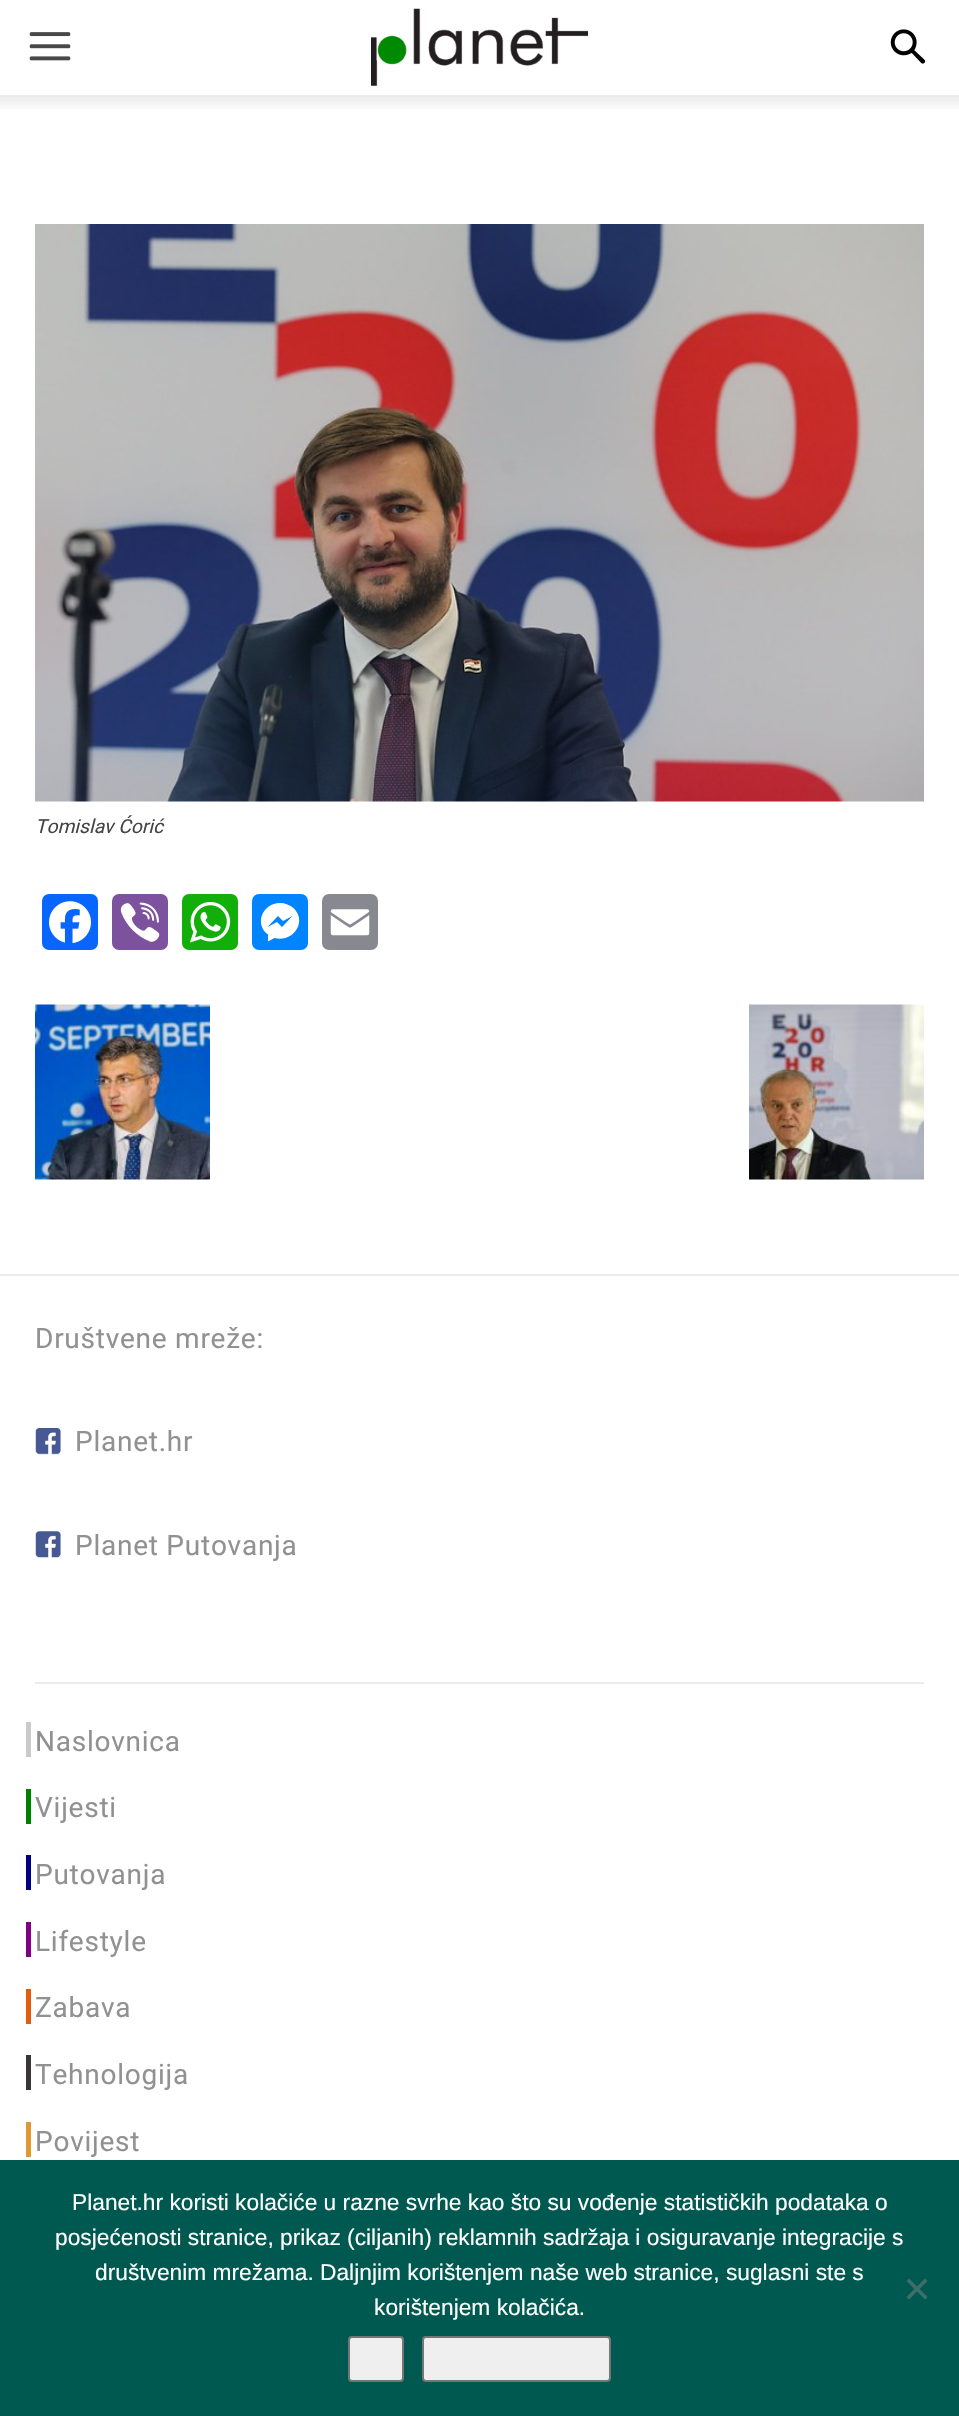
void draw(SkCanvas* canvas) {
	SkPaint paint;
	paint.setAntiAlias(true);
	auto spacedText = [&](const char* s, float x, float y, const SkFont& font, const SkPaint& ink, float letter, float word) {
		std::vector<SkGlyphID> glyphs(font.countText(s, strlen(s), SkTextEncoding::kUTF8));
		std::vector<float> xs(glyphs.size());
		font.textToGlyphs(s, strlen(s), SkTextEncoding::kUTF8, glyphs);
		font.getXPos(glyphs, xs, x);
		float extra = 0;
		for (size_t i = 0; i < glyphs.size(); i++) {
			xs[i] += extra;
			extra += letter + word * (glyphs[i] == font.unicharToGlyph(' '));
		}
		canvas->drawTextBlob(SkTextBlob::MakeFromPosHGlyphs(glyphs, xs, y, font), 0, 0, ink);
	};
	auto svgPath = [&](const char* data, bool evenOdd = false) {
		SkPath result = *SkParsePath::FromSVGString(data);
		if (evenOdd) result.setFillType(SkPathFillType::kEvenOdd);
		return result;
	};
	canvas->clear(0xffffffff);
	canvas->drawImageRect(SkImages::DeferredFromEncodedData(SkData::MakeFromFileName("img1.png")), SkRect::MakeXYWH(29, 32, 42, 29), SkSamplingOptions());
	canvas->drawImageRect(SkImages::DeferredFromEncodedData(SkData::MakeFromFileName("img2.png")), SkRect::MakeXYWH(371, 8, 217, 78), SkSamplingOptions());
	canvas->drawImageRect(SkImages::DeferredFromEncodedData(SkData::MakeFromFileName("img3.png")), SkRect::MakeXYWH(890, 29, 36, 35), SkSamplingOptions());
	canvas->drawImageRect(SkImages::DeferredFromEncodedData(SkData::MakeFromFileName("img4.png")), SkRect::MakeXYWH(0, 95, 959, 14), SkSamplingOptions());
	canvas->drawImageRect(SkImages::DeferredFromEncodedData(SkData::MakeFromFileName("img5.png")), SkRect::MakeXYWH(35, 224, 889, 578), SkSamplingOptions());
	SkFont f1(fontMgr->matchFamilyStyle("Roboto", SkFontStyle::Italic()), 19.25);
	f1.setSubpixel(true);
	paint.setColor(0xff444444);
	canvas->drawString("Tomislav Ćorić", 35, 833, f1, paint);
	paint.setColor(0xff0866ff);
	canvas->drawRoundRect(SkRect::MakeXYWH(42, 894, 56, 56), 7, 7, paint);
	canvas->drawImageRect(SkImages::DeferredFromEncodedData(SkData::MakeFromFileName("img6.png")), SkRect::MakeXYWH(49, 901, 42, 43), SkSamplingOptions());
	paint.setColor(0xff7c529e);
	canvas->drawRoundRect(SkRect::MakeXYWH(112, 894, 56, 56), 7, 7, paint);
	canvas->drawImageRect(SkImages::DeferredFromEncodedData(SkData::MakeFromFileName("img7.png")), SkRect::MakeXYWH(120, 902, 40, 40), SkSamplingOptions());
	paint.setColor(0xff12af0a);
	canvas->drawRoundRect(SkRect::MakeXYWH(182, 894, 56, 56), 7, 7, paint);
	canvas->drawImageRect(SkImages::DeferredFromEncodedData(SkData::MakeFromFileName("img8.png")), SkRect::MakeXYWH(189, 902, 42, 41), SkSamplingOptions());
	paint.setColor(0xff0084ff);
	canvas->drawRoundRect(SkRect::MakeXYWH(252, 894, 56, 56), 7, 7, paint);
	paint.setColor(0xffffffff);
	canvas->drawPath(svgPath("M280 903C262.5 903 254 924 268 934.5V941.5L274.5 938C292.5 943 308 922 293.5 908C290 905 285 903 280 903M282 927L277 922L267.5 927L278 916L283 921L292.5 916Z"), paint);
	paint.setColor(0xff888990);
	canvas->drawRoundRect(SkRect::MakeXYWH(322, 894, 56, 56), 7, 7, paint);
	canvas->drawImageRect(SkImages::DeferredFromEncodedData(SkData::MakeFromFileName("img9.png")), SkRect::MakeXYWH(330, 909, 40, 27), SkSamplingOptions());
	canvas->drawImageRect(SkImages::DeferredFromEncodedData(SkData::MakeFromFileName("img10.png")), SkRect::MakeXYWH(35, 1004, 175, 176), SkSamplingOptions());
	canvas->drawImageRect(SkImages::DeferredFromEncodedData(SkData::MakeFromFileName("img11.png")), SkRect::MakeXYWH(749, 1004, 175, 176), SkSamplingOptions());
	paint.setColor(0xffebebeb);
	canvas->drawRect(SkRect::MakeXYWH(0, 1274, 959, 2), paint);
	SkFont f2(fontMgr->matchFamilyStyle("Roboto", SkFontStyle::Normal()), 28);
	f2.setSubpixel(true);
	paint.setColor(0xff919191);
	spacedText("Društvene mreže:", 35, 1348, f2, paint, 0.75, 0);
	canvas->drawImageRect(SkImages::DeferredFromEncodedData(SkData::MakeFromFileName("img12.png")), SkRect::MakeXYWH(35, 1428, 26, 27), SkSamplingOptions());
	spacedText("Planet.hr", 75, 1451, f2, paint, 0.75, 0);
	canvas->drawImageRect(SkImages::DeferredFromEncodedData(SkData::MakeFromFileName("img13.png")), SkRect::MakeXYWH(35, 1531, 26, 27), SkSamplingOptions());
	spacedText("Planet Putovanja", 75, 1555, f2, paint, 0.75, 0);
	paint.setColor(0xffebebeb);
	canvas->drawRect(SkRect::MakeXYWH(35, 1682, 889, 2), paint);
	paint.setColor(0xffc9cac9);
	canvas->drawRect(SkRect::MakeXYWH(26, 1722, 5, 35), paint);
	paint.setColor(0xff919191);
	spacedText("Naslovnica", 35, 1751, f2, paint, 0.75, 0);
	paint.setColor(0xff008000);
	canvas->drawRect(SkRect::MakeXYWH(26, 1789, 5, 35), paint);
	paint.setColor(0xff919191);
	spacedText("Vijesti", 35, 1817, f2, paint, 0.75, 0);
	paint.setColor(0xff000080);
	canvas->drawRect(SkRect::MakeXYWH(26, 1855, 5, 35), paint);
	paint.setColor(0xff919191);
	spacedText("Putovanja", 35, 1884, f2, paint, 0.75, 0);
	paint.setColor(0xff800080);
	canvas->drawRect(SkRect::MakeXYWH(26, 1922, 5, 35), paint);
	paint.setColor(0xff919191);
	spacedText("Lifestyle", 35, 1951, f2, paint, 0.75, 0);
	paint.setColor(0xffe25d0f);
	canvas->drawRect(SkRect::MakeXYWH(26, 1989, 5, 35), paint);
	paint.setColor(0xff919191);
	spacedText("Zabava", 35, 2017, f2, paint, 0.75, 0);
	paint.setColor(0xff373535);
	canvas->drawRect(SkRect::MakeXYWH(26, 2055, 5, 35), paint);
	paint.setColor(0xff919191);
	spacedText("Tehnologija", 35, 2084, f2, paint, 0.75, 0);
	paint.setColor(0xffdd9933);
	canvas->drawRect(SkRect::MakeXYWH(26, 2122, 5, 35), paint);
	paint.setColor(0xff919191);
	spacedText("Povijest", 35, 2151, f2, paint, 0.75, 0);
	paint.setColor(0xff005950);
	canvas->drawRect(SkRect::MakeXYWH(0, 2160, 959, 256), paint);
	SkFont f3(fontMgr->matchFamilyStyle("Liberation Sans", SkFontStyle::Normal()), 22.75);
	f3.setSubpixel(true);
	paint.setColor(0xffffffff);
	canvas->drawString("Planet.hr koristi kolačiće u razne svrhe kao što su vođenje statističkih podataka o", 72, 2210, f3, paint);
	canvas->drawString("posjećenosti stranice, prikaz (ciljanih) reklamnih sadržaja i osiguravanje integracije s", 55, 2245, f3, paint);
	canvas->drawString("društvenim mrežama. Daljnjim korištenjem naše web stranice, suglasni ste s", 95, 2280, f3, paint);
	canvas->drawString("korištenjem kolačića.", 374, 2315, f3, paint);
	paint.setColor(0xff406d68);
	canvas->drawPath(svgPath("M925 2278.5L927.5 2281L909 2299.5L906.5 2297Z"), paint);
	canvas->drawPath(svgPath("M906.5 2281L909 2278.5L927.5 2297L925 2299.5Z"), paint);
	paint.setColor(0xffefefef);
	canvas->drawRoundRect(SkRect::MakeXYWH(349, 2337, 54, 44), 3, 3, paint);
	paint.setStroke(true);
	paint.setStrokeWidth(2);
	paint.setColor(0xff767676);
	canvas->drawRoundRect(SkRect::MakeXYWH(349, 2337, 54, 44), 3, 3, paint);
	paint.setStroke(false);
	paint.setColor(0xffefefef);
	canvas->drawRoundRect(SkRect::MakeXYWH(423, 2337, 187, 44), 3, 3, paint);
	paint.setStroke(true);
	paint.setColor(0xff767676);
	canvas->drawRoundRect(SkRect::MakeXYWH(423, 2337, 187, 44), 3, 3, paint);
}
